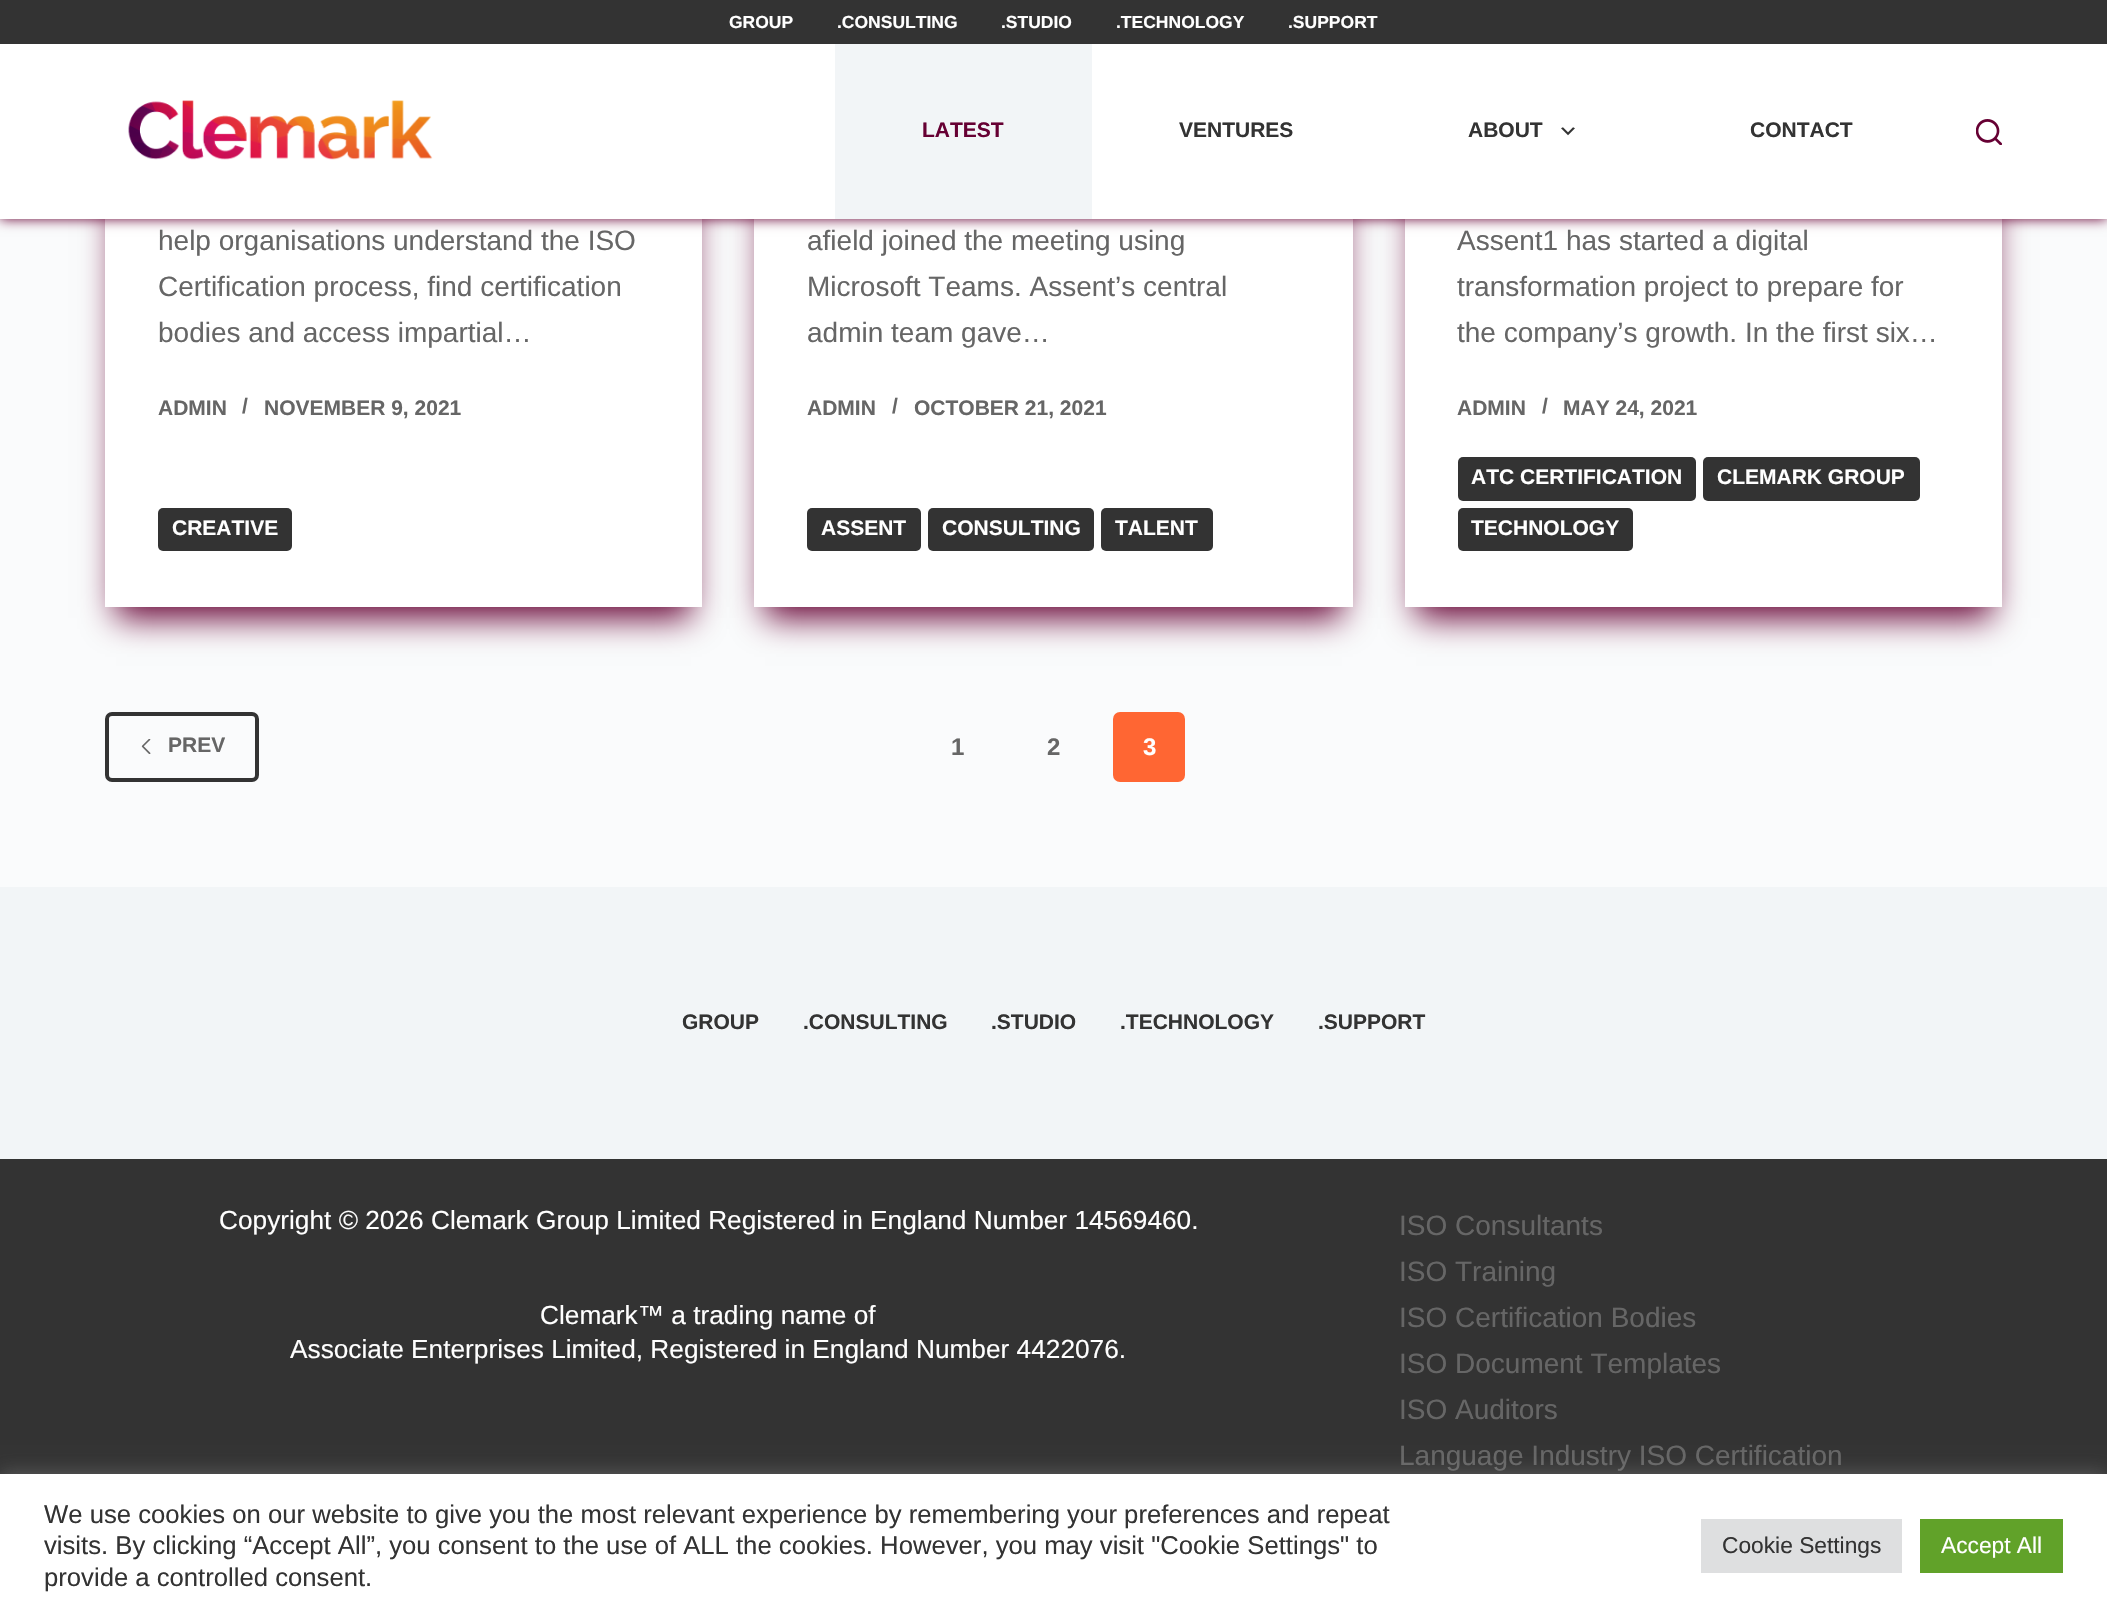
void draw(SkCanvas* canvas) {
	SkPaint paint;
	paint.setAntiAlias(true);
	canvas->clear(0xfffafbfc);
	paint.setColor(0xff660033);
	paint.setMaskFilter(SkMaskFilter::MakeBlur(kNormal_SkBlurStyle, 16));
	canvas->drawRect(SkRect::MakeXYWH(116, -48, 575, 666), paint);
	paint.setMaskFilter(nullptr);
	paint.setColor(0xffffffff);
	canvas->drawRect(SkRect::MakeXYWH(105, 219, 597, 388), paint);
	paint.setColor(0xff660033);
	paint.setMaskFilter(SkMaskFilter::MakeBlur(kNormal_SkBlurStyle, 16));
	canvas->drawRect(SkRect::MakeXYWH(765, -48, 577, 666), paint);
	paint.setMaskFilter(nullptr);
	paint.setColor(0xffffffff);
	canvas->drawRect(SkRect::MakeXYWH(754, 219, 599, 388), paint);
	paint.setColor(0xff660033);
	paint.setMaskFilter(SkMaskFilter::MakeBlur(kNormal_SkBlurStyle, 16));
	canvas->drawRect(SkRect::MakeXYWH(1416, -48, 576, 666), paint);
	paint.setMaskFilter(nullptr);
	paint.setColor(0xffffffff);
	canvas->drawRect(SkRect::MakeXYWH(1405, 219, 597, 388), paint);
	paint.setColor(0xff660033);
	paint.setMaskFilter(SkMaskFilter::MakeBlur(kNormal_SkBlurStyle, 6));
	canvas->drawRect(SkRect::MakeXYWH(0, 44, 2107, 175), paint);
	paint.setMaskFilter(nullptr);
	paint.setColor(0xff333333);
	canvas->drawRect(SkRect::MakeXYWH(0, 0, 2107, 44), paint);
	SkFont f1(fontMgr->matchFamilyStyle("Liberation Sans", SkFontStyle::Bold()), 17.5);
	f1.setSubpixel(true);
	paint.setColor(0xffffffff);
	canvas->drawString("GROUP", 729, 28, f1, paint);
	canvas->drawString(".CONSULTING", 837, 28, f1, paint);
	canvas->drawString(".STUDIO", 1001, 28, f1, paint);
	canvas->drawString(".TECHNOLOGY", 1116, 28, f1, paint);
	canvas->drawString(".SUPPORT", 1288, 28, f1, paint);
	canvas->drawRect(SkRect::MakeXYWH(0, 44, 2107, 175), paint);
	canvas->drawImageRect(SkImages::DeferredFromEncodedData(SkData::MakeFromFileName("img1.png")), SkRect::MakeXYWH(128, 100, 305, 60), SkSamplingOptions());
	paint.setColor(0xfff2f5f7);
	canvas->drawRect(SkRect::MakeXYWH(835, 44, 257, 175), paint);
	SkFont f2(fontMgr->matchFamilyStyle("Liberation Sans", SkFontStyle::Bold()), 21);
	f2.setSubpixel(true);
	paint.setColor(0xff660033);
	canvas->drawString("LATEST", 922, 137, f2, paint);
	paint.setColor(0xff333333);
	canvas->drawString("VENTURES", 1179, 137, f2, paint);
	canvas->drawString("ABOUT", 1468, 137, f2, paint);
	canvas->drawImageRect(SkImages::DeferredFromEncodedData(SkData::MakeFromFileName("img2.png")), SkRect::MakeXYWH(1561, 127, 14, 9), SkSamplingOptions());
	canvas->drawString("CONTACT", 1750, 137, f2, paint);
	canvas->drawImageRect(SkImages::DeferredFromEncodedData(SkData::MakeFromFileName("img3.png")), SkRect::MakeXYWH(1976, 119, 26, 26), SkSamplingOptions());
	SkFont f3(fontMgr->matchFamilyStyle("Liberation Sans", SkFontStyle::Normal()), 28);
	f3.setSubpixel(true);
	paint.setColor(0xff666666);
	canvas->drawString("help organisations understand the ISO", 158, 250, f3, paint);
	canvas->drawString("Certification process, find certification", 158, 296, f3, paint);
	canvas->drawString("bodies and access impartial…", 158, 342, f3, paint);
	canvas->drawString("ADMIN", 158, 415, f2, paint);
	canvas->drawString("/", 242, 413, f2, paint);
	canvas->drawString("NOVEMBER 9, 2021", 264, 415, f2, paint);
	paint.setColor(0xff333333);
	canvas->drawRoundRect(SkRect::MakeXYWH(158, 508, 134, 43), 5, 5, paint);
	paint.setColor(0xffffffff);
	canvas->drawString("CREATIVE", 172, 535, f2, paint);
	paint.setColor(0xff666666);
	canvas->drawString("afield joined the meeting using", 807, 250, f3, paint);
	canvas->drawString("Microsoft Teams. Assent’s central", 807, 296, f3, paint);
	canvas->drawString("admin team gave…", 807, 342, f3, paint);
	canvas->drawString("ADMIN", 807, 415, f2, paint);
	canvas->drawString("/", 892, 413, f2, paint);
	canvas->drawString("OCTOBER 21, 2021", 914, 415, f2, paint);
	paint.setColor(0xff333333);
	canvas->drawRoundRect(SkRect::MakeXYWH(807, 508, 114, 43), 5, 5, paint);
	paint.setColor(0xffffffff);
	canvas->drawString("ASSENT", 821, 535, f2, paint);
	paint.setColor(0xff333333);
	canvas->drawRoundRect(SkRect::MakeXYWH(928, 508, 166, 43), 5, 5, paint);
	paint.setColor(0xffffffff);
	canvas->drawString("CONSULTING", 942, 535, f2, paint);
	paint.setColor(0xff333333);
	canvas->drawRoundRect(SkRect::MakeXYWH(1101, 508, 112, 43), 5, 5, paint);
	paint.setColor(0xffffffff);
	canvas->drawString("TALENT", 1115, 535, f2, paint);
	paint.setColor(0xff666666);
	canvas->drawString("Assent1 has started a digital", 1457, 250, f3, paint);
	canvas->drawString("transformation project to prepare for", 1457, 296, f3, paint);
	canvas->drawString("the company’s growth. In the first six…", 1457, 342, f3, paint);
	canvas->drawString("ADMIN", 1457, 415, f2, paint);
	canvas->drawString("/", 1542, 413, f2, paint);
	canvas->drawString("MAY 24, 2021", 1563, 415, f2, paint);
	paint.setColor(0xff333333);
	canvas->drawRoundRect(SkRect::MakeXYWH(1458, 457, 238, 44), 5, 5, paint);
	paint.setColor(0xffffffff);
	canvas->drawString("ATC CERTIFICATION", 1471, 484, f2, paint);
	paint.setColor(0xff333333);
	canvas->drawRoundRect(SkRect::MakeXYWH(1703, 457, 217, 44), 5, 5, paint);
	paint.setColor(0xffffffff);
	canvas->drawString("CLEMARK GROUP", 1717, 484, f2, paint);
	paint.setColor(0xff333333);
	canvas->drawRoundRect(SkRect::MakeXYWH(1458, 508, 175, 43), 5, 5, paint);
	paint.setColor(0xffffffff);
	canvas->drawString("TECHNOLOGY", 1471, 535, f2, paint);
	paint.setStroke(true);
	paint.setStrokeWidth(4);
	paint.setColor(0xff333333);
	canvas->drawRoundRect(SkRect::MakeXYWH(107, 714, 150, 66), 5, 5, paint);
	canvas->drawImageRect(SkImages::DeferredFromEncodedData(SkData::MakeFromFileName("img4.png")), SkRect::MakeXYWH(141, 739, 10, 15), SkSamplingOptions());
	paint.setStroke(false);
	paint.setColor(0xff666666);
	canvas->drawString("PREV", 168, 752, f2, paint);
	SkFont f4(fontMgr->matchFamilyStyle("Liberation Sans", SkFontStyle::Bold()), 24);
	f4.setSubpixel(true);
	canvas->drawString("1", 951, 755, f4, paint);
	canvas->drawString("2", 1047, 755, f4, paint);
	paint.setColor(0xffff6633);
	canvas->drawRoundRect(SkRect::MakeXYWH(1113, 712, 72, 70), 7, 7, paint);
	paint.setColor(0xffffffff);
	canvas->drawString("3", 1143, 755, f4, paint);
	paint.setColor(0xfff2f5f7);
	canvas->drawRect(SkRect::MakeXYWH(0, 887, 2107, 272), paint);
	paint.setColor(0xff333333);
	canvas->drawString("GROUP", 682, 1029, f2, paint);
	canvas->drawString(".CONSULTING", 803, 1029, f2, paint);
	canvas->drawString(".STUDIO", 991, 1029, f2, paint);
	canvas->drawString(".TECHNOLOGY", 1120, 1029, f2, paint);
	canvas->drawString(".SUPPORT", 1318, 1029, f2, paint);
	canvas->drawRect(SkRect::MakeXYWH(0, 1159, 2107, 315), paint);
	SkFont f5(fontMgr->matchFamilyStyle("Liberation Sans", SkFontStyle::Normal()), 26.25);
	f5.setSubpixel(true);
	paint.setColor(0xffffffff);
	canvas->drawString("Copyright © 2026 Clemark Group Limited Registered in England Number 14569460.", 219, 1229, f5, paint);
	canvas->drawString("Clemark™ a trading name of", 540, 1324, f5, paint);
	canvas->drawString("Associate Enterprises Limited, Registered in England Number 4422076.", 290, 1358, f5, paint);
	paint.setColor(0xff666666);
	canvas->drawString("ISO Consultants", 1399, 1235, f3, paint);
	canvas->drawString("ISO Training", 1399, 1281, f3, paint);
	canvas->drawString("ISO Certification Bodies", 1399, 1327, f3, paint);
	canvas->drawString("ISO Document Templates", 1399, 1373, f3, paint);
	canvas->drawString("ISO Auditors", 1399, 1419, f3, paint);
	canvas->drawString("Language Industry ISO Certification", 1399, 1465, f3, paint);
	paint.setColor(0x4dacabab);
	paint.setMaskFilter(SkMaskFilter::MakeBlur(kNormal_SkBlurStyle, 9));
	canvas->drawRect(SkRect::MakeXYWH(0, 1472, 2107, 143), paint);
	paint.setMaskFilter(nullptr);
	paint.setColor(0xffffffff);
	canvas->drawRect(SkRect::MakeXYWH(0, 1474, 2107, 142), paint);
	SkFont f6(fontMgr->matchFamilyStyle("Liberation Sans", SkFontStyle::Normal()), 25.67);
	f6.setSubpixel(true);
	paint.setColor(0xff333333);
	canvas->drawString("We use cookies on our website to give you the most relevant experience by remembering your preferences and repeat", 44, 1523, f6, paint);
	canvas->drawString("visits. By clicking “Accept All”, you consent to the use of ALL the cookies. However, you may visit \"Cookie Settings\" to", 44, 1554, f6, paint);
	canvas->drawString("provide a controlled consent.", 44, 1586, f6, paint);
	paint.setColor(0xffdedfe0);
	canvas->drawRect(SkRect::MakeXYWH(1701, 1519, 201, 54), paint);
	SkFont f7(fontMgr->matchFamilyStyle("Liberation Sans", SkFontStyle::Normal()), 22.75);
	f7.setSubpixel(true);
	paint.setColor(0xff333333);
	canvas->drawString("Cookie Settings", 1722, 1553, f7, paint);
	paint.setColor(0xff61a229);
	canvas->drawRect(SkRect::MakeXYWH(1920, 1519, 143, 54), paint);
	paint.setColor(0xffffffff);
	canvas->drawString("Accept All", 1941, 1553, f7, paint);
}
